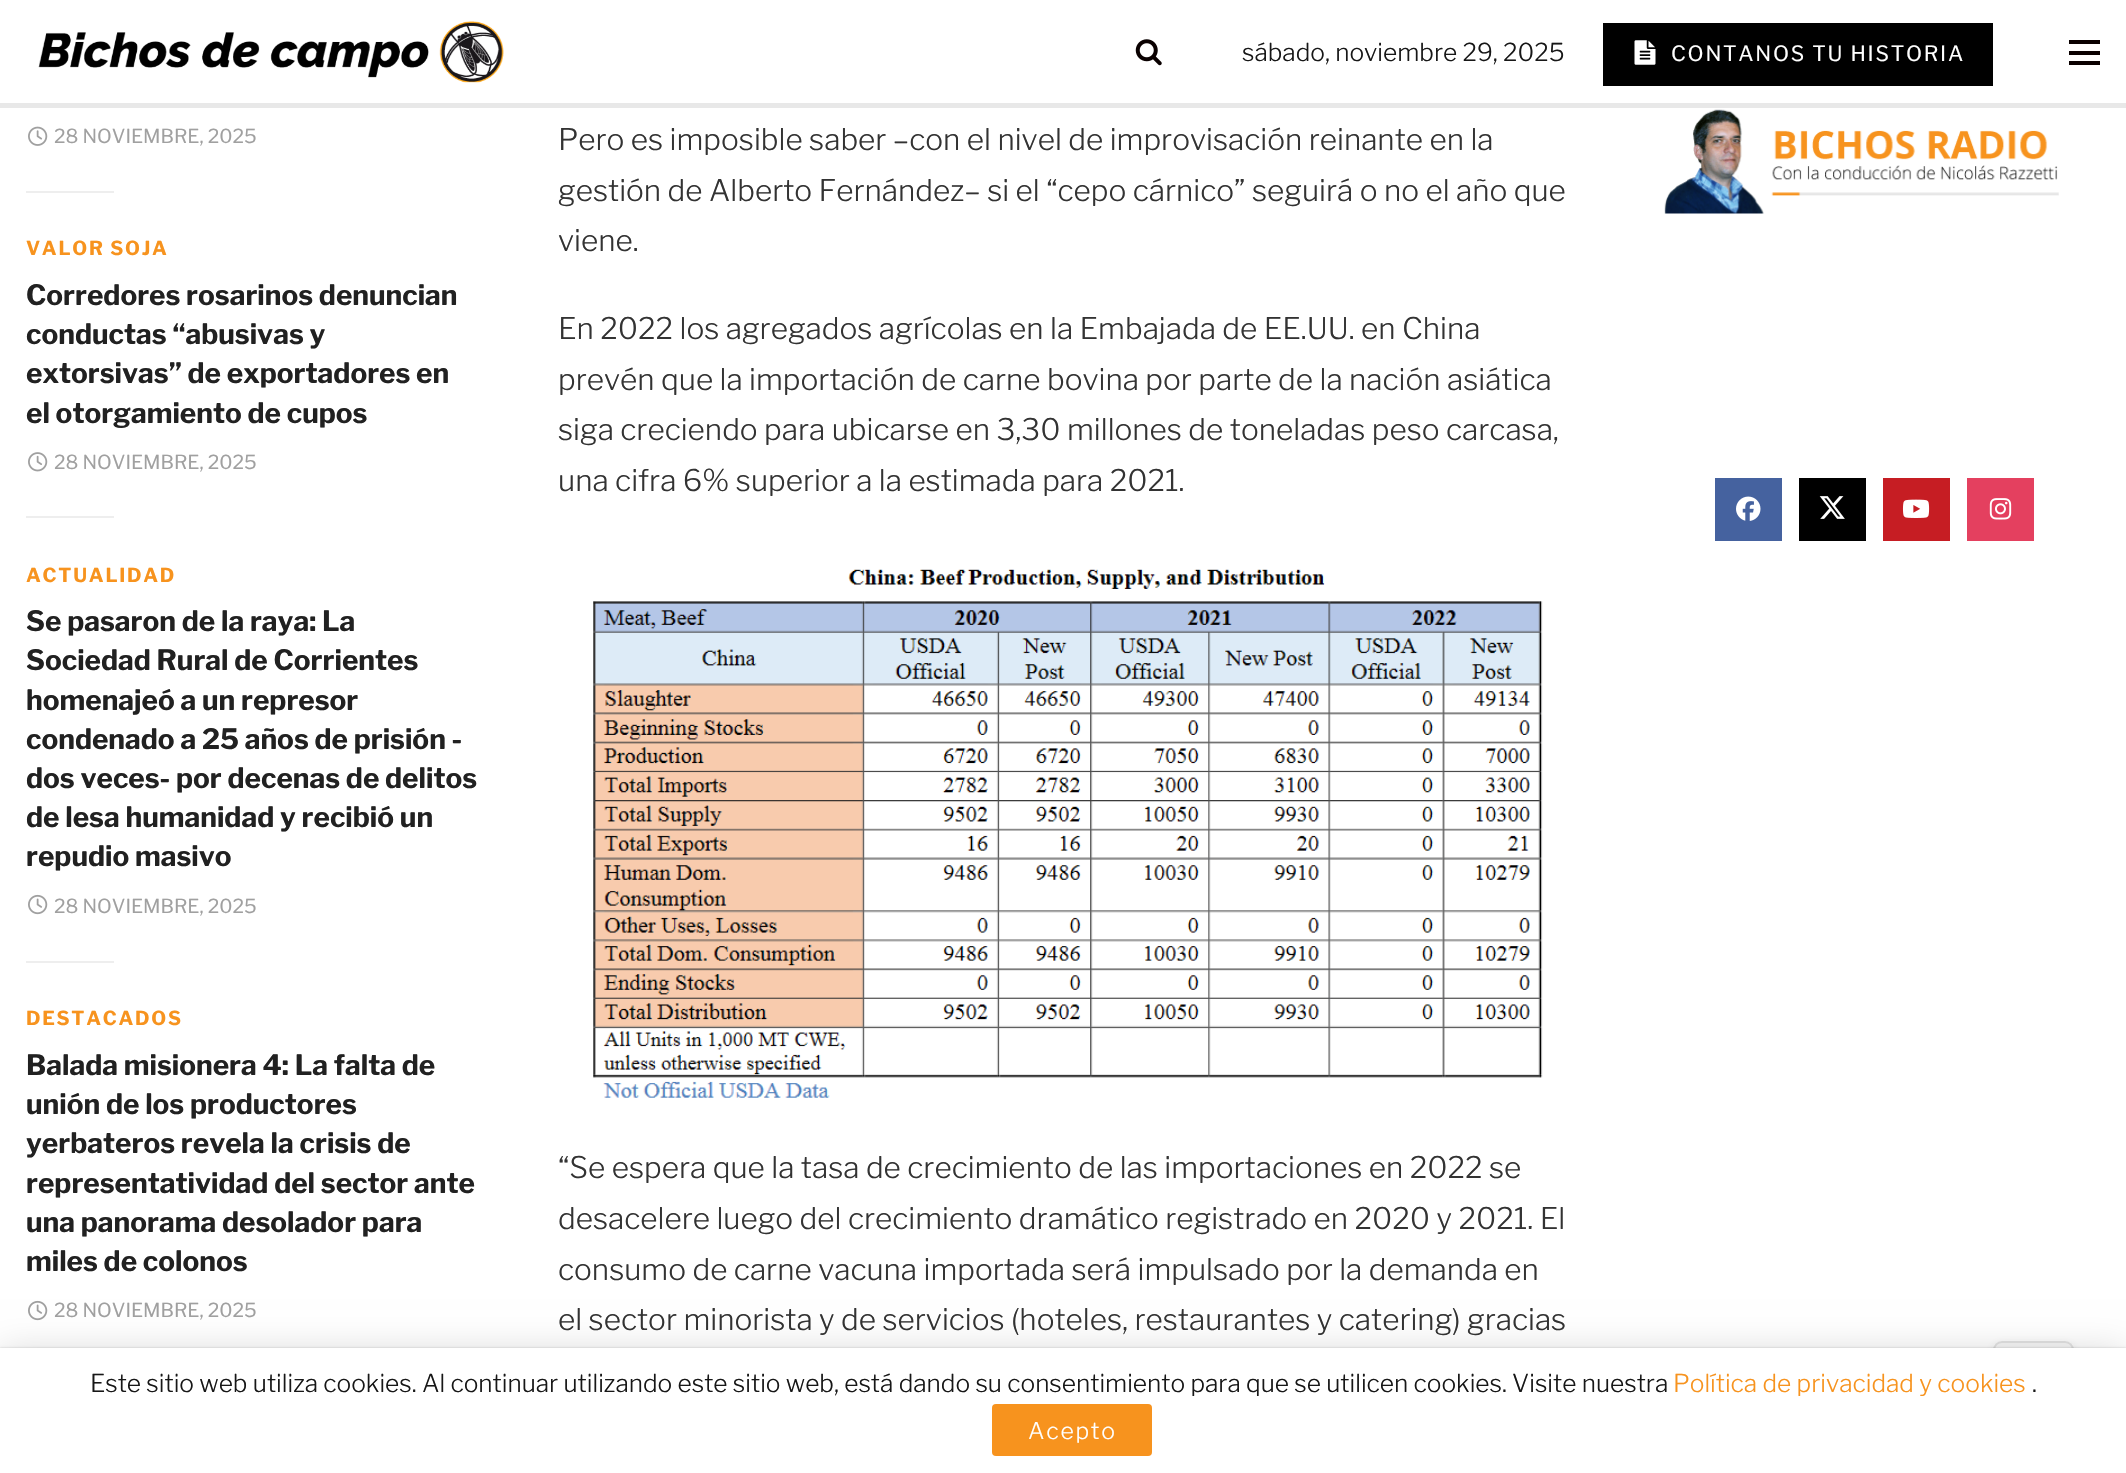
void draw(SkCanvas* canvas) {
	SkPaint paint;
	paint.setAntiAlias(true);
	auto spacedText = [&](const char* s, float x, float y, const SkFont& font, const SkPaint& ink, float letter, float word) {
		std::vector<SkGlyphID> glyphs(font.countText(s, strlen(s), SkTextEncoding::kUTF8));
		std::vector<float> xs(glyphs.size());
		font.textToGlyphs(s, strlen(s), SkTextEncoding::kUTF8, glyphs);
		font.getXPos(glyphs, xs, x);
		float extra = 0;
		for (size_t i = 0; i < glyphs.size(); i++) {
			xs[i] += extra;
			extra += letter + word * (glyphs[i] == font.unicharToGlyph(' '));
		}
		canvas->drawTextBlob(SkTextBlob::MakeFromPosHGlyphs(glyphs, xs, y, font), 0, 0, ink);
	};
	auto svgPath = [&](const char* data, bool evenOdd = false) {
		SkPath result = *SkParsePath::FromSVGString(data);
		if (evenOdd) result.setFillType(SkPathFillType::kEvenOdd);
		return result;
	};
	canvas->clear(0xffffffff);
	paint.setColor(0xffe8e8e8);
	canvas->drawRect(SkRect::MakeXYWH(0, 103, 2126, 5), paint);
	canvas->drawImageRect(SkImages::DeferredFromEncodedData(SkData::MakeFromFileName("img1.png")), SkRect::MakeXYWH(38, 21, 466, 62), SkSamplingOptions());
	canvas->drawImageRect(SkImages::DeferredFromEncodedData(SkData::MakeFromFileName("img2.png")), SkRect::MakeXYWH(1135, 39, 27, 27), SkSamplingOptions());
	SkFont f1(fontMgr->matchFamilyStyle("Libre Franklin", SkFontStyle(100, SkFontStyle::kNormal_Width, SkFontStyle::kUpright_Slant)), 24.5);
	f1.setSubpixel(true);
	paint.setColor(0xff171717);
	canvas->drawString("sábado, noviembre 29, 2025", 1242, 61, f1, paint);
	paint.setColor(0xff000000);
	canvas->drawRect(SkRect::MakeXYWH(1603, 23, 390, 63), paint);
	canvas->drawImageRect(SkImages::DeferredFromEncodedData(SkData::MakeFromFileName("img3.png")), SkRect::MakeXYWH(1634, 40, 22, 25), SkSamplingOptions());
	SkFont f2(fontMgr->matchFamilyStyle("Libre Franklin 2", SkFontStyle(100, SkFontStyle::kNormal_Width, SkFontStyle::kUpright_Slant)), 21);
	f2.setSubpixel(true);
	paint.setColor(0xffffffff);
	spacedText("CONTANOS TU HISTORIA", 1671, 61, f2, paint, 1.75, 0);
	paint.setColor(0xff0a0000);
	canvas->drawRect(SkRect::MakeXYWH(2069, 40, 31, 4), paint);
	canvas->drawRect(SkRect::MakeXYWH(2069, 51, 31, 4), paint);
	canvas->drawRect(SkRect::MakeXYWH(2069, 61, 31, 4), paint);
	canvas->drawImageRect(SkImages::DeferredFromEncodedData(SkData::MakeFromFileName("img4.png")), SkRect::MakeXYWH(28, 126, 20, 20), SkSamplingOptions());
	SkFont f3(fontMgr->matchFamilyStyle("Libre Franklin 2", SkFontStyle(100, SkFontStyle::kNormal_Width, SkFontStyle::kUpright_Slant)), 19.25);
	f3.setSubpixel(true);
	paint.setColor(0xffa0a0a0);
	canvas->drawString("28 NOVIEMBRE, 2025", 54, 143, f3, paint);
	paint.setColor(0xffeeeeee);
	canvas->drawRect(SkRect::MakeXYWH(26, 191, 88, 2), paint);
	SkFont f4(fontMgr->matchFamilyStyle("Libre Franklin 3", SkFontStyle(100, SkFontStyle::kNormal_Width, SkFontStyle::kUpright_Slant)), 19.25);
	f4.setSubpixel(true);
	paint.setColor(0xfff7931e);
	spacedText("VALOR SOJA", 26, 255, f4, paint, 1.75, 0);
	SkFont f5(fontMgr->matchFamilyStyle("Libre Franklin 3", SkFontStyle(100, SkFontStyle::kNormal_Width, SkFontStyle::kUpright_Slant)), 28);
	f5.setSubpixel(true);
	paint.setColor(0xff212121);
	canvas->drawString("Corredores rosarinos denuncian", 26, 305, f5, paint);
	canvas->drawString("conductas “abusivas y", 26, 344, f5, paint);
	canvas->drawString("extorsivas” de exportadores en", 26, 383, f5, paint);
	canvas->drawString("el otorgamiento de cupos", 26, 423, f5, paint);
	canvas->drawImageRect(SkImages::DeferredFromEncodedData(SkData::MakeFromFileName("img5.png")), SkRect::MakeXYWH(28, 452, 20, 20), SkSamplingOptions());
	paint.setColor(0xffa0a0a0);
	canvas->drawString("28 NOVIEMBRE, 2025", 54, 469, f3, paint);
	paint.setColor(0xffeeeeee);
	canvas->drawRect(SkRect::MakeXYWH(26, 516, 88, 2), paint);
	paint.setColor(0xfff7931e);
	spacedText("ACTUALIDAD", 26, 582, f4, paint, 1.75, 0);
	paint.setColor(0xff212121);
	canvas->drawString("Se pasaron de la raya: La", 26, 631, f5, paint);
	canvas->drawString("Sociedad Rural de Corrientes", 26, 670, f5, paint);
	canvas->drawString("homenajeó a un represor", 26, 710, f5, paint);
	canvas->drawString("condenado a 25 años de prisión -", 26, 749, f5, paint);
	canvas->drawString("dos veces- por decenas de delitos", 26, 788, f5, paint);
	canvas->drawString("de lesa humanidad y recibió un", 26, 827, f5, paint);
	canvas->drawString("repudio masivo", 26, 866, f5, paint);
	canvas->drawImageRect(SkImages::DeferredFromEncodedData(SkData::MakeFromFileName("img6.png")), SkRect::MakeXYWH(28, 894, 20, 21), SkSamplingOptions());
	paint.setColor(0xffa0a0a0);
	canvas->drawString("28 NOVIEMBRE, 2025", 54, 913, f3, paint);
	paint.setColor(0xffeeeeee);
	canvas->drawRect(SkRect::MakeXYWH(26, 961, 88, 2), paint);
	paint.setColor(0xfff7931e);
	spacedText("DESTACADOS", 26, 1025, f4, paint, 1.75, 0);
	paint.setColor(0xff212121);
	canvas->drawString("Balada misionera 4: La falta de", 26, 1075, f5, paint);
	canvas->drawString("unión de los productores", 26, 1114, f5, paint);
	canvas->drawString("yerbateros revela la crisis de", 26, 1153, f5, paint);
	canvas->drawString("representatividad del sector ante", 26, 1193, f5, paint);
	canvas->drawString("una panorama desolador para", 26, 1232, f5, paint);
	canvas->drawString("miles de colonos", 26, 1271, f5, paint);
	canvas->drawImageRect(SkImages::DeferredFromEncodedData(SkData::MakeFromFileName("img6.png")), SkRect::MakeXYWH(28, 1300, 20, 21), SkSamplingOptions());
	paint.setColor(0xffa0a0a0);
	canvas->drawString("28 NOVIEMBRE, 2025", 54, 1317, f3, paint);
	SkFont f6(fontMgr->matchFamilyStyle("Libre Franklin", SkFontStyle(100, SkFontStyle::kNormal_Width, SkFontStyle::kUpright_Slant)), 29.75);
	f6.setSubpixel(true);
	paint.setColor(0xff333333);
	canvas->drawString("Pero es imposible saber –con el nivel de improvisación reinante en la", 558, 150, f6, paint);
	canvas->drawString("gestión de Alberto Fernández– si el “cepo cárnico” seguirá o no el año que", 558, 201, f6, paint);
	canvas->drawString("viene.", 558, 251, f6, paint);
	canvas->drawString("En 2022 los agregados agrícolas en la Embajada de EE.UU. en China", 558, 339, f6, paint);
	canvas->drawString("prevén que la importación de carne bovina por parte de la nación asiática", 558, 390, f6, paint);
	canvas->drawString("siga creciendo para ubicarse en 3,30 millones de toneladas peso carcasa,", 558, 440, f6, paint);
	canvas->drawString("una cifra 6% superior a la estimada para 2021.", 558, 491, f6, paint);
	canvas->drawImageRect(SkImages::DeferredFromEncodedData(SkData::MakeFromFileName("img7.png")), SkRect::MakeXYWH(593, 569, 950, 529), SkSamplingOptions());
	canvas->drawString("“Se espera que la tasa de crecimiento de las importaciones en 2022 se", 558, 1178, f6, paint);
	canvas->drawString("desacelere luego del crecimiento dramático registrado en 2020 y 2021. El", 558, 1229, f6, paint);
	canvas->drawString("consumo de carne vacuna importada será impulsado por la demanda en", 558, 1280, f6, paint);
	canvas->drawString("el sector minorista y de servicios (hoteles, restaurantes y catering) gracias", 558, 1330, f6, paint);
	canvas->drawImageRect(SkImages::DeferredFromEncodedData(SkData::MakeFromFileName("img8.png")), SkRect::MakeXYWH(1664, 109, 395, 105), SkSamplingOptions());
	paint.setColor(0xff45629f);
	canvas->drawRect(SkRect::MakeXYWH(1715, 478, 67, 63), paint);
	canvas->drawImageRect(SkImages::DeferredFromEncodedData(SkData::MakeFromFileName("img9.png")), SkRect::MakeXYWH(1736, 496, 25, 25), SkSamplingOptions());
	paint.setColor(0xff000000);
	canvas->drawRect(SkRect::MakeXYWH(1799, 478, 67, 63), paint);
	canvas->drawImageRect(SkImages::DeferredFromEncodedData(SkData::MakeFromFileName("img10.png")), SkRect::MakeXYWH(1819, 496, 26, 23), SkSamplingOptions());
	paint.setColor(0xffc61d23);
	canvas->drawRect(SkRect::MakeXYWH(1883, 478, 67, 63), paint);
	canvas->drawImageRect(SkImages::DeferredFromEncodedData(SkData::MakeFromFileName("img11.png")), SkRect::MakeXYWH(1902, 499, 28, 19), SkSamplingOptions());
	paint.setColor(0xffe4405f);
	canvas->drawRect(SkRect::MakeXYWH(1967, 478, 67, 63), paint);
	canvas->drawImageRect(SkImages::DeferredFromEncodedData(SkData::MakeFromFileName("img12.png")), SkRect::MakeXYWH(1989, 498, 23, 22), SkSamplingOptions());
	canvas->save();
	canvas->clipPath(svgPath("M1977 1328H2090V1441H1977ZM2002 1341H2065C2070 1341 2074 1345 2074 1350V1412C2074 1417 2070 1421 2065 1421H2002C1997 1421 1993 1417 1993 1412V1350C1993 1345 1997 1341 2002 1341Z", true), true);
	paint.setColor(0x1a333333);
	paint.setMaskFilter(SkMaskFilter::MakeBlur(kNormal_SkBlurStyle, 5));
	canvas->drawRoundRect(SkRect::MakeXYWH(1993, 1344, 81, 81), 9, 9, paint);
	paint.setMaskFilter(nullptr);
	canvas->restore();
	paint.setColor(0x26c3c3c3);
	canvas->drawRoundRect(SkRect::MakeXYWH(1993, 1341, 81, 80), 9, 9, paint);
	paint.setStroke(true);
	paint.setStrokeWidth(2);
	paint.setColor(0x1c333333);
	canvas->drawRoundRect(SkRect::MakeXYWH(1994, 1342, 79, 78), 8, 8, paint);
	paint.setStroke(false);
	paint.setColor(0x26000000);
	paint.setMaskFilter(SkMaskFilter::MakeBlur(kNormal_SkBlurStyle, 17.5));
	canvas->drawRect(SkRect::MakeXYWH(0, 1351, 2126, 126), paint);
	paint.setMaskFilter(nullptr);
	paint.setColor(0x33000000);
	paint.setMaskFilter(SkMaskFilter::MakeBlur(kNormal_SkBlurStyle, 1));
	canvas->drawRect(SkRect::MakeXYWH(0, 1348, 2126, 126), paint);
	paint.setMaskFilter(nullptr);
	paint.setColor(0xffffffff);
	canvas->drawRect(SkRect::MakeXYWH(0, 1348, 2126, 125), paint);
	paint.setColor(0xff171717);
	canvas->drawString("Este sitio web utiliza cookies. Al continuar utilizando este sitio web, está dando su consentimiento para que se utilicen cookies. Visite nuestra", 90, 1392, f1, paint);
	paint.setColor(0xfff7931e);
	canvas->drawString("Política de privacidad y cookies", 1673, 1392, f1, paint);
	paint.setColor(0xff171717);
	canvas->drawString(".", 2032, 1392, f1, paint);
	paint.setColor(0xfff7931e);
	canvas->drawRoundRect(SkRect::MakeXYWH(992, 1404, 160, 52), 4, 4, paint);
	SkFont f7(fontMgr->matchFamilyStyle("Libre Franklin", SkFontStyle(100, SkFontStyle::kNormal_Width, SkFontStyle::kUpright_Slant)), 23);
	f7.setSubpixel(true);
	paint.setColor(0xffffffff);
	spacedText("Acepto", 1028, 1439, f7, paint, 1.75, 0);
}
